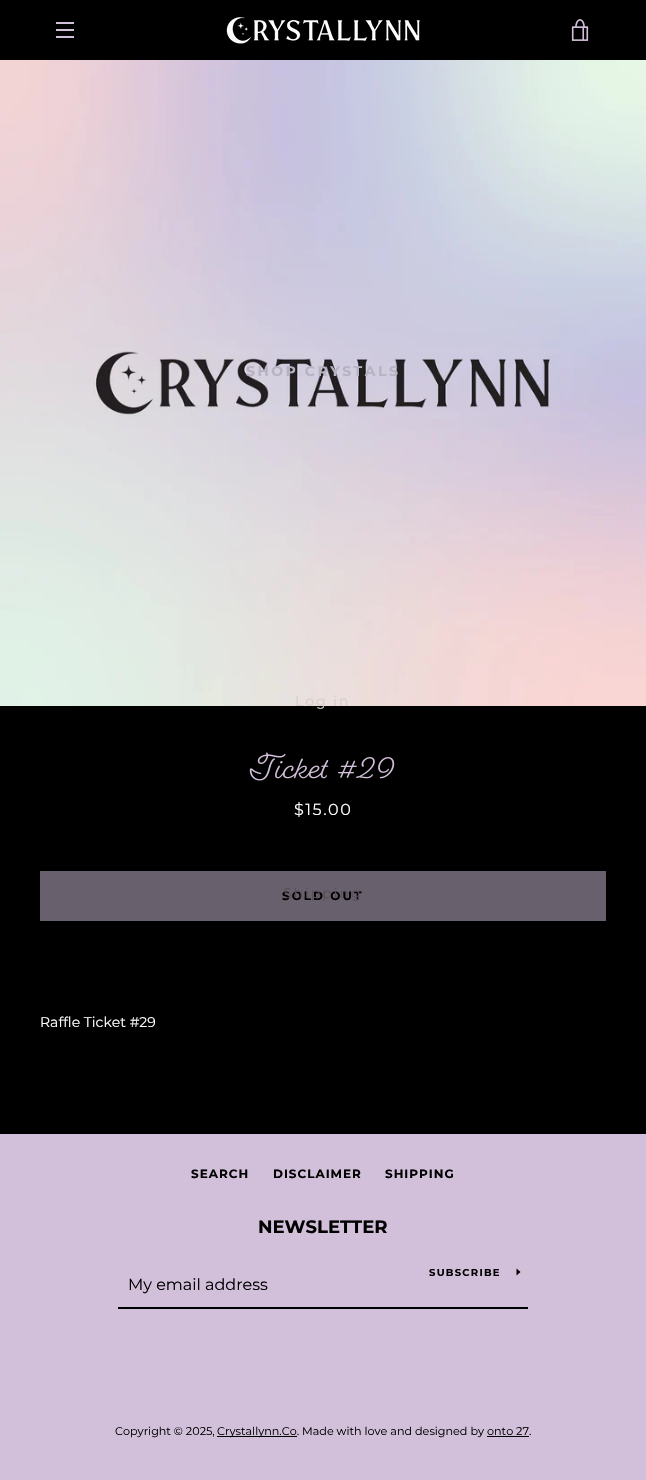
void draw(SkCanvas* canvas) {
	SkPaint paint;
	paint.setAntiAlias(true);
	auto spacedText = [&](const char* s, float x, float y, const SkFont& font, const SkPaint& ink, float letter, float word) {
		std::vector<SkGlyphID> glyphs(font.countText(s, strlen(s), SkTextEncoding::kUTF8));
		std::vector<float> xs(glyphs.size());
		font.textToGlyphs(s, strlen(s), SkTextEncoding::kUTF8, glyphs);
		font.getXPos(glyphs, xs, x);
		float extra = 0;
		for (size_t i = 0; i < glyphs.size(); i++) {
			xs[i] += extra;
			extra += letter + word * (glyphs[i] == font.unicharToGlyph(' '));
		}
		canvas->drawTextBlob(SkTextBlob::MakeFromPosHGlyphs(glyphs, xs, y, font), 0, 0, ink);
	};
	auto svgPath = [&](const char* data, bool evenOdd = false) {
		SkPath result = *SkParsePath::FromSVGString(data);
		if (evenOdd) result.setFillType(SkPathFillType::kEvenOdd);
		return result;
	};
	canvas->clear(0xff000000);
	canvas->drawImageRect(SkImages::DeferredFromEncodedData(SkData::MakeFromFileName("img1.png")), SkRect::MakeXYWH(226, 17, 194, 27), SkSamplingOptions());
	canvas->drawImageRect(SkImages::DeferredFromEncodedData(SkData::MakeFromFileName("img2.png")), SkRect::MakeXYWH(571, 19, 18, 22), SkSamplingOptions());
	paint.setColor(0xffd2bfd9);
	canvas->drawRect(SkRect::MakeXYWH(56, 22, 18, 2), paint);
	canvas->drawRect(SkRect::MakeXYWH(56, 29, 18, 2), paint);
	canvas->drawRect(SkRect::MakeXYWH(56, 36, 18, 2), paint);
	canvas->drawImageRect(SkImages::DeferredFromEncodedData(SkData::MakeFromFileName("img3.png")), SkRect::MakeXYWH(0, 60, 646, 646), SkSamplingOptions());
	SkFont f1(fontMgr->matchFamilyStyle("Montserrat", SkFontStyle::Bold()), 14);
	f1.setSubpixel(true);
	paint.setColor(0xffb8b3c2);
	spacedText("SHOP CRYSTALS", 246, 376, f1, paint, 2.5, 0);
	SkFont f2(fontMgr->matchFamilyStyle("Montserrat", SkFontStyle::Normal()), 14);
	f2.setSubpixel(true);
	paint.setColor(0xffd6cdca);
	spacedText("Log in", 295, 706, f2, paint, 2, 0);
	paint.setColor(0xff69606d);
	canvas->drawRect(SkRect::MakeXYWH(40, 871, 566, 50), paint);
	SkFont f3(fontMgr->matchFamilyStyle("Montserrat", SkFontStyle::Bold()), 12);
	f3.setSubpixel(true);
	paint.setColor(0xff000000);
	spacedText("SOLD OUT", 282, 900, f3, paint, 2, 0);
	paint.setColor(0xff564e59);
	spacedText("Shipping", 283, 898, f2, paint, 2, 0);
	canvas->drawImageRect(SkImages::DeferredFromEncodedData(SkData::MakeFromFileName("img4.png")), SkRect::MakeXYWH(249, 752, 146, 29), SkSamplingOptions());
	SkFont f4(fontMgr->matchFamilyStyle("Montserrat", SkFontStyle::Normal()), 16);
	f4.setSubpixel(true);
	paint.setColor(0xffffffff);
	spacedText("$15.00", 294, 815, f4, paint, 1.5, 0);
	canvas->drawString("Raffle Ticket #29", 40, 1027, f2, paint);
	paint.setColor(0xffd2bfd9);
	canvas->drawRect(SkRect::MakeXYWH(0, 1134, 646, 346), paint);
	paint.setColor(0xff000000);
	spacedText("SEARCH", 191, 1178, f3, paint, 1, 0);
	spacedText("DISCLAIMER", 273, 1178, f3, paint, 1, 0);
	spacedText("SHIPPING", 385, 1178, f3, paint, 1, 0);
	SkFont f5(fontMgr->matchFamilyStyle("Montserrat", SkFontStyle::Bold()), 18);
	f5.setSubpixel(true);
	canvas->drawString("NEWSLETTER", 258, 1233, f5, paint);
	canvas->drawRect(SkRect::MakeXYWH(118, 1307, 410, 2), paint);
	SkFont f6(fontMgr->matchFamilyStyle("Montserrat", SkFontStyle::Bold()), 10);
	f6.setSubpixel(true);
	spacedText("SUBSCRIBE", 429, 1276, f6, paint, 1.25, 0);
	canvas->drawPath(svgPath("M520.5 1272L516.5 1275.5V1268.5Z"), paint);
	canvas->drawString("My email address", 128, 1290, f4, paint);
	SkFont f7(fontMgr->matchFamilyStyle("Montserrat", SkFontStyle::Normal()), 11.2);
	f7.setSubpixel(true);
	canvas->drawString("Copyright © 2025,", 115, 1435, f7, paint);
	canvas->drawRect(SkRect::MakeXYWH(217, 1436, 80, 1), paint);
	canvas->drawString("Crystallynn.Co. Made with love and designed by onto 27.", 217, 1435, f7, paint);
	canvas->drawRect(SkRect::MakeXYWH(487, 1436, 42, 1), paint);
}
